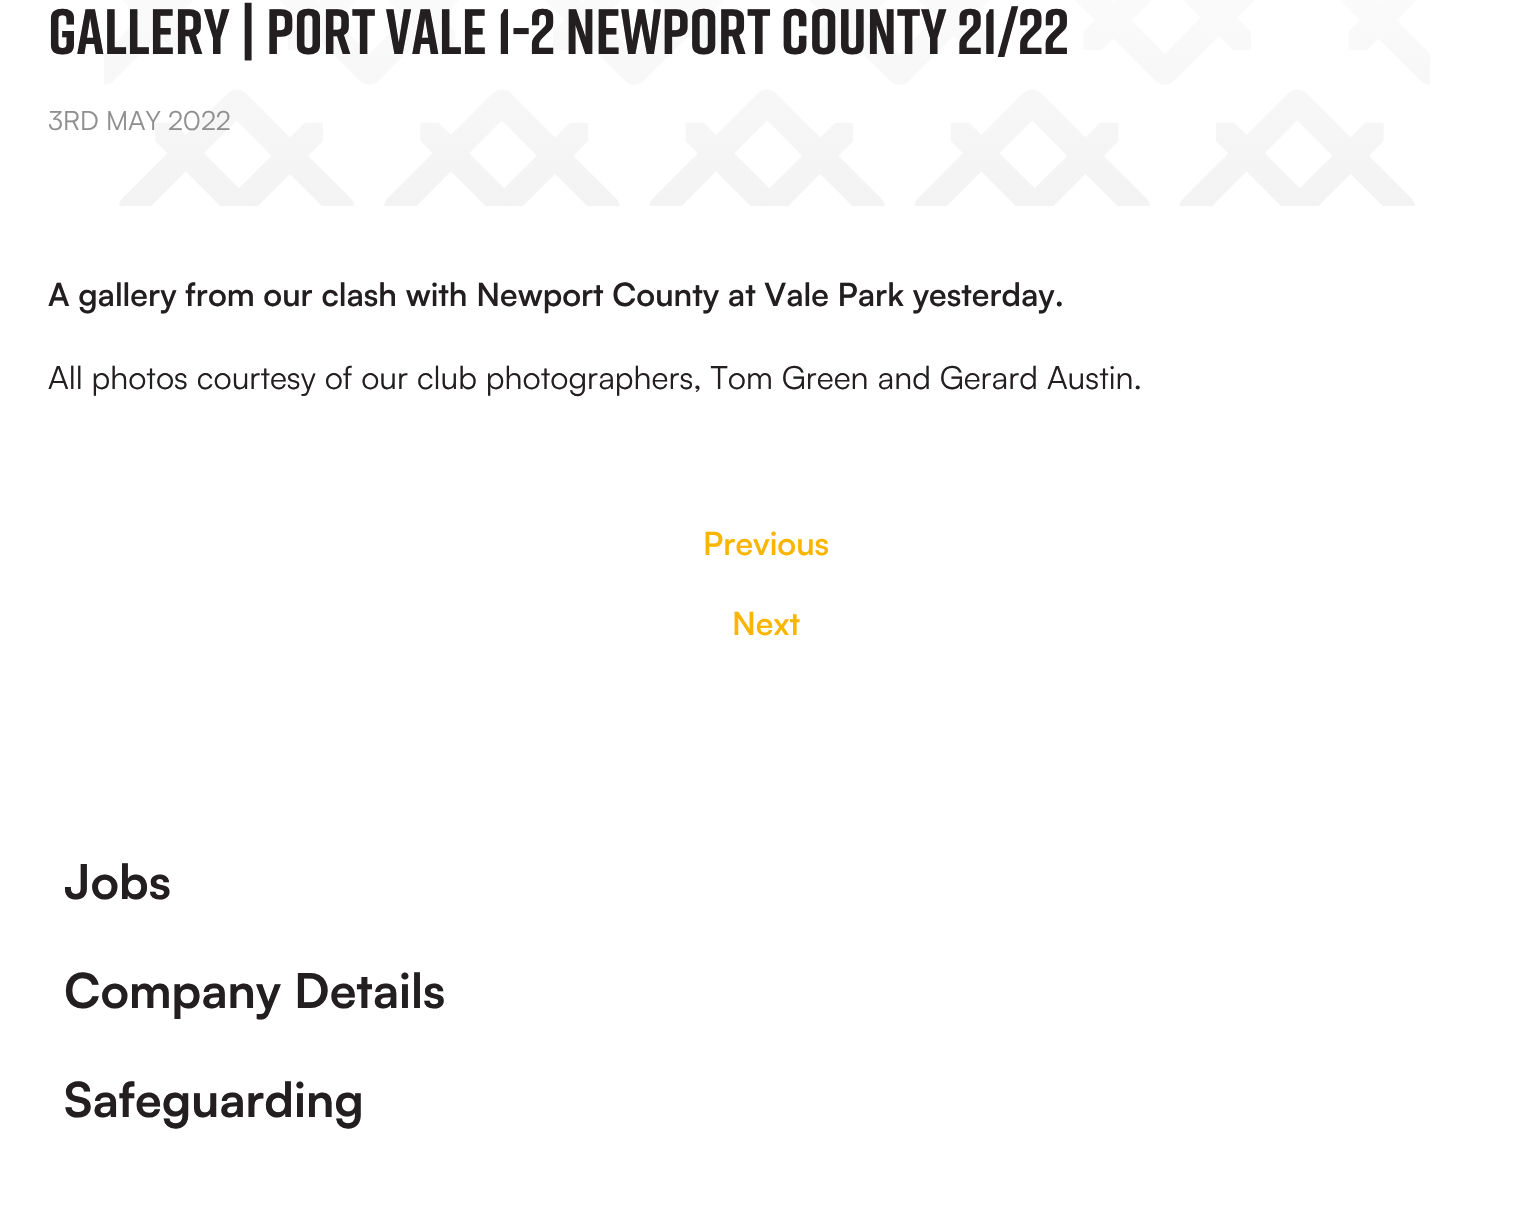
void draw(SkCanvas* canvas) {
	SkPaint paint;
	paint.setAntiAlias(true);
	canvas->clear(0xffffffff);
	canvas->drawImageRect(SkImages::DeferredFromEncodedData(SkData::MakeFromFileName("img1.png")), SkRect::MakeXYWH(104, 0, 1326, 206), SkSamplingOptions());
	SkFont f1(fontMgr->matchFamilyStyle("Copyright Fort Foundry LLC", SkFontStyle::Bold()), 64);
	f1.setSubpixel(true);
	paint.setColor(0xff231f20);
	canvas->drawString("Gallery | Port Vale 1-2 Newport County 21/22", 48, 54, f1, paint);
	SkFont f2(fontMgr->matchFamilyStyle("Satoshi", SkFontStyle::Normal()), 26.5);
	f2.setSubpixel(true);
	paint.setColor(0xff908e8f);
	canvas->drawString("3RD MAY 2022", 48, 130, f2, paint);
	SkFont f3(fontMgr->matchFamilyStyle("Satoshi", SkFontStyle(600, SkFontStyle::kNormal_Width, SkFontStyle::kUpright_Slant)), 32);
	f3.setSubpixel(true);
	paint.setColor(0xff231f20);
	canvas->drawString("A gallery from our clash with Newport County at Vale Park yesterday.", 48, 306, f3, paint);
	SkFont f4(fontMgr->matchFamilyStyle("Satoshi", SkFontStyle::Normal()), 32);
	f4.setSubpixel(true);
	canvas->drawString("All photos courtesy of our club photographers, Tom Green and Gerard Austin.", 48, 389, f4, paint);
	paint.setColor(0xfffab500);
	canvas->drawString("Previous", 703, 555, f3, paint);
	canvas->drawString("Next", 732, 635, f3, paint);
	SkFont f5(fontMgr->matchFamilyStyle("Satoshi", SkFontStyle::Bold()), 48);
	f5.setSubpixel(true);
	paint.setColor(0xff231f20);
	canvas->drawString("Jobs", 64, 899, f5, paint);
	canvas->drawString("Company Details", 64, 1008, f5, paint);
	canvas->drawString("Safeguarding", 64, 1117, f5, paint);
}
